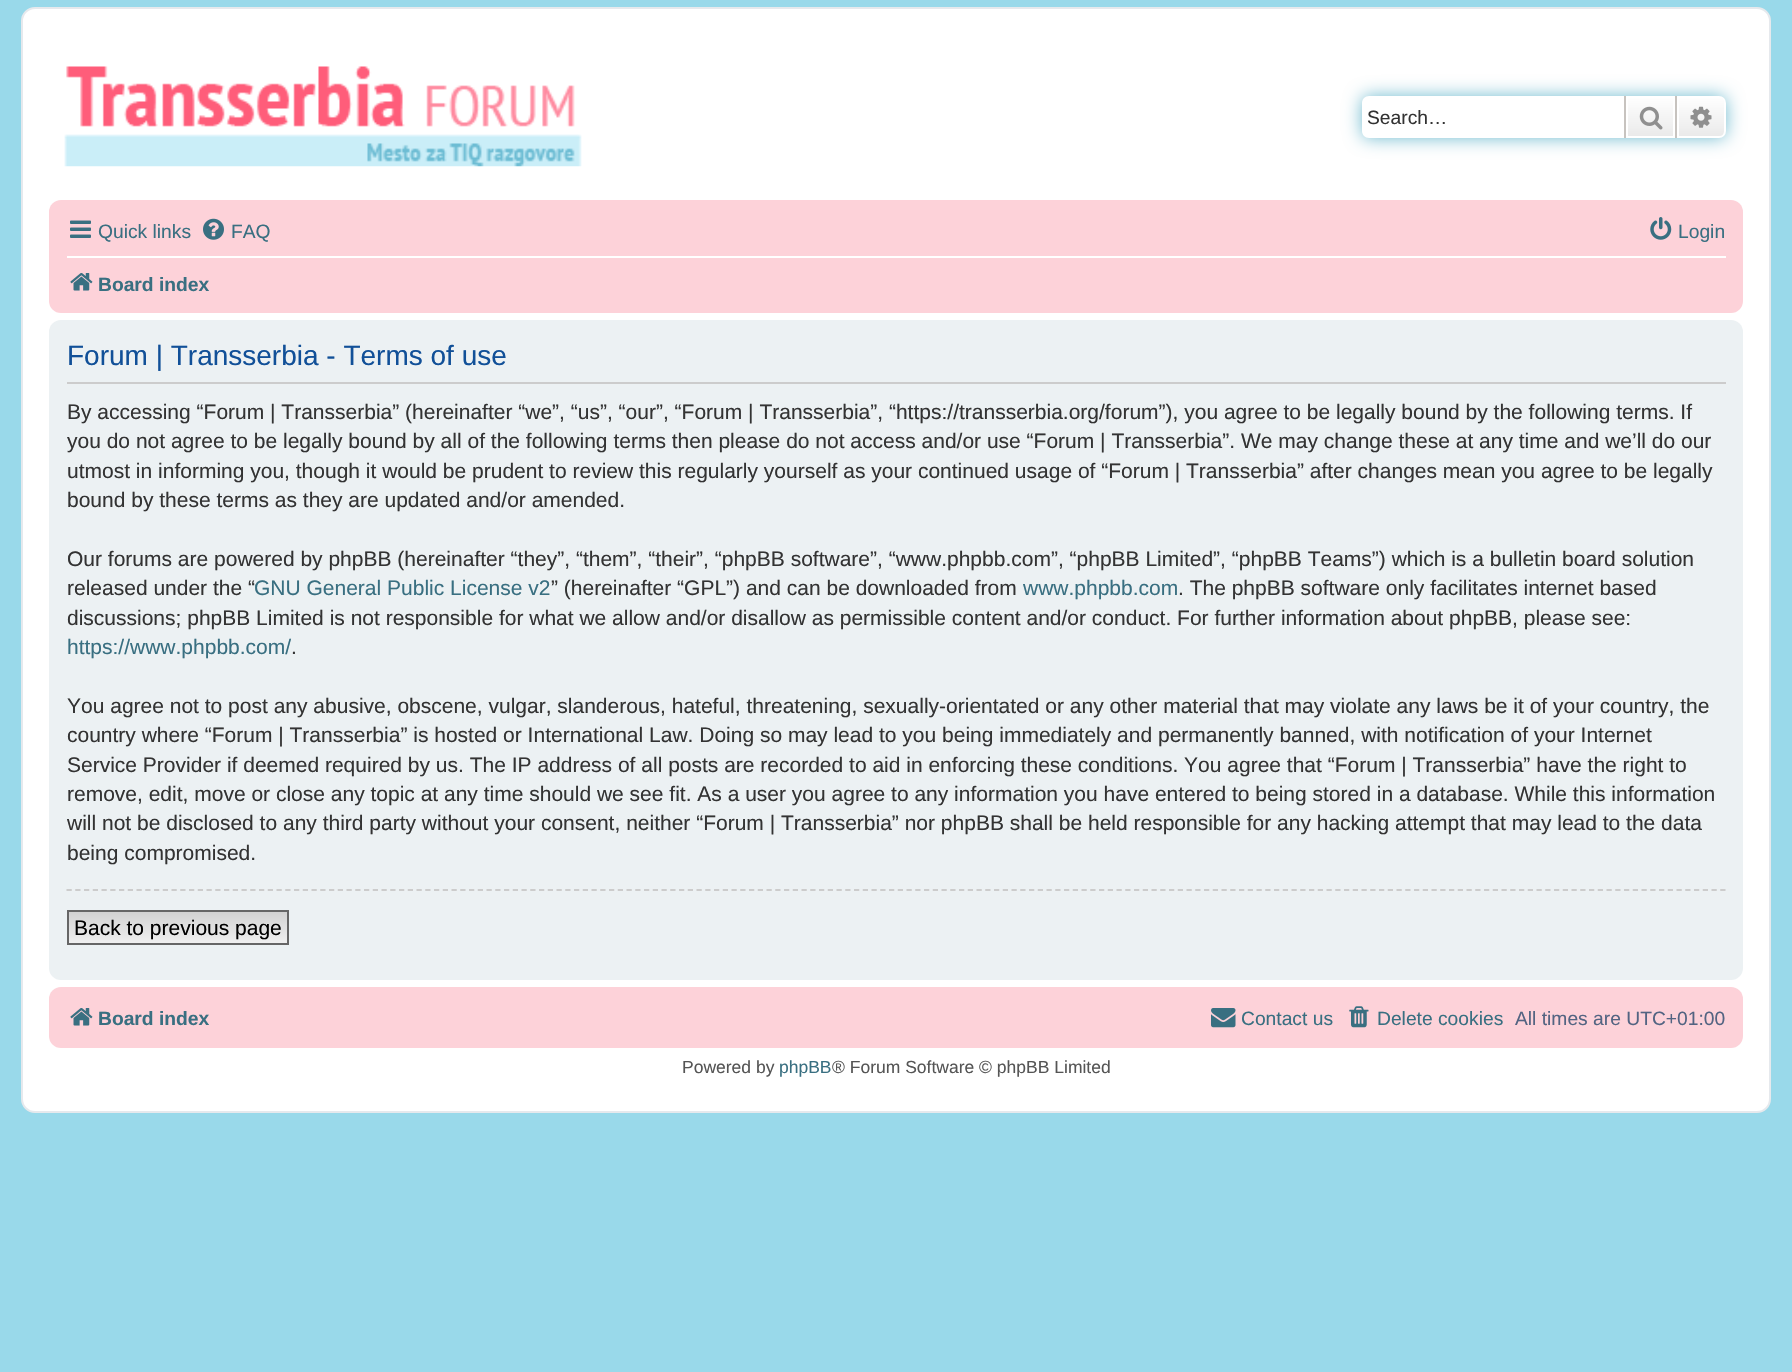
void draw(SkCanvas* canvas) {
	SkPaint paint;
	paint.setAntiAlias(true);
	auto svgPath = [&](const char* data, bool evenOdd = false) {
		SkPath result = *SkParsePath::FromSVGString(data);
		if (evenOdd) result.setFillType(SkPathFillType::kEvenOdd);
		return result;
	};
	canvas->clear(0xff99d9ea);
	paint.setColor(0xffffffff);
	canvas->drawRoundRect(SkRect::MakeXYWH(22, 8, 1748, 1104), 13, 13, paint);
	paint.setStroke(true);
	paint.setStrokeWidth(2);
	paint.setColor(0xffe6e9ed);
	canvas->drawRoundRect(SkRect::MakeXYWH(22, 8, 1748, 1104), 13, 13, paint);
	canvas->drawImageRect(SkImages::DeferredFromEncodedData(SkData::MakeFromFileName("img1.png")), SkRect::MakeXYWH(64, 66, 518, 101), SkSamplingOptions());
	paint.setStroke(false);
	paint.setColor(0xff6ebacf);
	paint.setMaskFilter(SkMaskFilter::MakeBlur(kNormal_SkBlurStyle, 9));
	canvas->drawRoundRect(SkRect::MakeXYWH(1362, 96, 364, 42), 7, 7, paint);
	paint.setMaskFilter(nullptr);
	paint.setColor(0xffffffff);
	canvas->drawPath(svgPath("M1369 96H1624V138H1369C1365 138 1362 135 1362 131V103C1362 99 1365 96 1369 96Z"), paint);
	SkFont f1(fontMgr->matchFamilyStyle("Liberation Sans", SkFontStyle::Normal()), 19.25);
	f1.setSubpixel(true);
	paint.setColor(0xff333333);
	canvas->drawString("Search…", 1367, 124, f1, paint);
	{
		const SkColor colors[] = {0xffffffff, 0xffe9e9e9};
		const float stops[] = {0, 1};
		const SkPoint ends[] = {{1650, 96}, {1650, 138}};
		paint.setShader(SkGradientShader::MakeLinear(ends, colors, stops, 2, SkTileMode::kClamp));
		paint.setAlpha(255);
	}
	canvas->drawRect(SkRect::MakeXYWH(1628, 98, 45, 38), paint);
	paint.setStroke(true);
	paint.setShader(nullptr);
	paint.setColor(0xffffffff);
	canvas->drawRect(SkRect::MakeXYWH(1627, 97, 47, 40), paint);
	paint.setStroke(false);
	paint.setColor(0xffc7c3bf);
	canvas->drawRect(SkRect::MakeXYWH(1675, 96, 2, 42), paint);
	canvas->drawRect(SkRect::MakeXYWH(1624, 96, 2, 42), paint);
	canvas->drawImageRect(SkImages::DeferredFromEncodedData(SkData::MakeFromFileName("img2.png")), SkRect::MakeXYWH(1639, 106, 24, 24), SkSamplingOptions());
	{
		const SkColor colors[] = {0xffffffff, 0xffe9e9e9};
		const float stops[] = {0, 1};
		const SkPoint ends[] = {{1701, 96}, {1701, 138}};
		paint.setShader(SkGradientShader::MakeLinear(ends, colors, stops, 2, SkTileMode::kClamp));
		paint.setAlpha(255);
	}
	canvas->drawPath(svgPath("M1678 97H1719C1722.5 97 1725 99.5 1725 103V131C1725 134.5 1722.5 137 1719 137H1678Z"), paint);
	paint.setStroke(true);
	paint.setShader(nullptr);
	paint.setColor(0xffffffff);
	canvas->drawPath(svgPath("M1678 97H1719C1722.5 97 1725 99.5 1725 103V131C1725 134.5 1722.5 137 1719 137H1678Z"), paint);
	canvas->drawImageRect(SkImages::DeferredFromEncodedData(SkData::MakeFromFileName("img3.png")), SkRect::MakeXYWH(1690, 106, 22, 22), SkSamplingOptions());
	paint.setStroke(false);
	paint.setColor(0xfffdd2d9);
	canvas->drawRoundRect(SkRect::MakeXYWH(49, 200, 1694, 113), 12, 12, paint);
	canvas->drawImageRect(SkImages::DeferredFromEncodedData(SkData::MakeFromFileName("img4.png")), SkRect::MakeXYWH(70, 220, 21, 18), SkSamplingOptions());
	paint.setColor(0xff396f81);
	canvas->drawString("Quick links", 98, 238, f1, paint);
	canvas->drawImageRect(SkImages::DeferredFromEncodedData(SkData::MakeFromFileName("img5.png")), SkRect::MakeXYWH(203, 218, 21, 22), SkSamplingOptions());
	canvas->drawString("FAQ", 231, 238, f1, paint);
	canvas->drawImageRect(SkImages::DeferredFromEncodedData(SkData::MakeFromFileName("img6.png")), SkRect::MakeXYWH(1650, 217, 22, 23), SkSamplingOptions());
	canvas->drawString("Login", 1678, 238, f1, paint);
	paint.setColor(0xffffffff);
	canvas->drawRect(SkRect::MakeXYWH(67, 256, 1659, 2), paint);
	canvas->drawImageRect(SkImages::DeferredFromEncodedData(SkData::MakeFromFileName("img7.png")), SkRect::MakeXYWH(70, 273, 23, 18), SkSamplingOptions());
	SkFont f2(fontMgr->matchFamilyStyle("Liberation Sans", SkFontStyle::Bold()), 19.25);
	f2.setSubpixel(true);
	paint.setColor(0xff396f81);
	canvas->drawString("Board index", 98, 291, f2, paint);
	paint.setColor(0xffecf1f3);
	canvas->drawRoundRect(SkRect::MakeXYWH(49, 320, 1694, 660), 12, 12, paint);
	paint.setColor(0xffcccccc);
	canvas->drawRect(SkRect::MakeXYWH(67, 382, 1659, 2), paint);
	SkFont f3(fontMgr->matchFamilyStyle("Liberation Sans", SkFontStyle::Normal()), 28);
	f3.setSubpixel(true);
	paint.setColor(0xff115098);
	canvas->drawString("Forum | Transserbia - Terms of use", 67, 365, f3, paint);
	SkFont f4(fontMgr->matchFamilyStyle("Liberation Sans", SkFontStyle::Normal()), 21);
	f4.setSubpixel(true);
	paint.setColor(0xff333333);
	canvas->drawString("By accessing “Forum | Transserbia” (hereinafter “we”, “us”, “our”, “Forum | Transserbia”, “https://transserbia.org/forum”), you agree to be legally bound by the following terms. If", 67, 419, f4, paint);
	canvas->drawString("you do not agree to be legally bound by all of the following terms then please do not access and/or use “Forum | Transserbia”. We may change these at any time and we’ll do our", 67, 448, f4, paint);
	canvas->drawString("utmost in informing you, though it would be prudent to review this regularly yourself as your continued usage of “Forum | Transserbia” after changes mean you agree to be legally", 67, 478, f4, paint);
	canvas->drawString("bound by these terms as they are updated and/or amended.", 67, 507, f4, paint);
	canvas->drawString("Our forums are powered by phpBB (hereinafter “they”, “them”, “their”, “phpBB software”, “www.phpbb.com”, “phpBB Limited”, “phpBB Teams”) which is a bulletin board solution", 67, 566, f4, paint);
	canvas->drawString("released under the “", 67, 595, f4, paint);
	paint.setColor(0xff396f81);
	canvas->drawString("GNU General Public License v2", 254, 595, f4, paint);
	paint.setColor(0xff333333);
	canvas->drawString("” (hereinafter “GPL”) and can be downloaded from", 551, 595, f4, paint);
	paint.setColor(0xff396f81);
	canvas->drawString("www.phpbb.com", 1023, 595, f4, paint);
	paint.setColor(0xff333333);
	canvas->drawString(". The phpBB software only facilitates internet based", 1178, 595, f4, paint);
	canvas->drawString("discussions; phpBB Limited is not responsible for what we allow and/or disallow as permissible content and/or conduct. For further information about phpBB, please see:", 67, 625, f4, paint);
	paint.setColor(0xff396f81);
	canvas->drawString("https://www.phpbb.com/", 67, 654, f4, paint);
	paint.setColor(0xff333333);
	canvas->drawString(".", 291, 654, f4, paint);
	canvas->drawString("You agree not to post any abusive, obscene, vulgar, slanderous, hateful, threatening, sexually-orientated or any other material that may violate any laws be it of your country, the", 67, 713, f4, paint);
	canvas->drawString("country where “Forum | Transserbia” is hosted or International Law. Doing so may lead to you being immediately and permanently banned, with notification of your Internet", 67, 742, f4, paint);
	canvas->drawString("Service Provider if deemed required by us. The IP address of all posts are recorded to aid in enforcing these conditions. You agree that “Forum | Transserbia” have the right to", 67, 772, f4, paint);
	canvas->drawString("remove, edit, move or close any topic at any time should we see fit. As a user you agree to any information you have entered to being stored in a database. While this information", 67, 801, f4, paint);
	canvas->drawString("will not be disclosed to any third party without your consent, neither “Forum | Transserbia” nor phpBB shall be held responsible for any hacking attempt that may lead to the data", 67, 830, f4, paint);
	canvas->drawString("being compromised.", 67, 860, f4, paint);
	paint.setStroke(true);
	paint.setStrokeWidth(1.8);
	paint.setColor(0xffcccccc);
	paint.setPathEffect(SkDashPathEffect::Make({{5.25f, 3.5f}}, 0));
	canvas->drawPath(svgPath("M66.5 890H1725.5"), paint);
	paint.setPathEffect(nullptr);
	paint.setStroke(false);
	{
		const SkColor colors[] = {0xffd2d2d2, 0xffefefef};
		const float stops[] = {0, 1};
		const SkPoint ends[] = {{178, 912}, {178, 943}};
		paint.setShader(SkGradientShader::MakeLinear(ends, colors, stops, 2, SkTileMode::kClamp));
		paint.setAlpha(255);
	}
	canvas->drawRect(SkRect::MakeXYWH(69, 912, 218, 31), paint);
	paint.setStroke(true);
	paint.setStrokeWidth(2);
	paint.setShader(nullptr);
	paint.setColor(0xff666666);
	canvas->drawRect(SkRect::MakeXYWH(68, 911, 220, 33), paint);
	paint.setStroke(false);
	paint.setColor(0xff000000);
	canvas->drawString("Back to previous page", 74, 935, f4, paint);
	paint.setColor(0xfffdd2d9);
	canvas->drawRoundRect(SkRect::MakeXYWH(49, 987, 1694, 61), 12, 12, paint);
	canvas->drawImageRect(SkImages::DeferredFromEncodedData(SkData::MakeFromFileName("img7.png")), SkRect::MakeXYWH(70, 1008, 23, 18), SkSamplingOptions());
	paint.setColor(0xff396f81);
	canvas->drawString("Board index", 98, 1025, f2, paint);
	canvas->drawImageRect(SkImages::DeferredFromEncodedData(SkData::MakeFromFileName("img8.png")), SkRect::MakeXYWH(1211, 1008, 25, 20), SkSamplingOptions());
	canvas->drawString("Contact us", 1241, 1025, f1, paint);
	canvas->drawImageRect(SkImages::DeferredFromEncodedData(SkData::MakeFromFileName("img9.png")), SkRect::MakeXYWH(1349, 1006, 20, 22), SkSamplingOptions());
	canvas->drawString("Delete cookies", 1377, 1025, f1, paint);
	paint.setColor(0xff536482);
	canvas->drawString("All times are UTC+01:00", 1515, 1025, f1, paint);
	SkFont f5(fontMgr->matchFamilyStyle("Liberation Sans", SkFontStyle::Normal()), 17.5);
	f5.setSubpixel(true);
	paint.setColor(0xff555555);
	canvas->drawString("Powered by", 682, 1073, f5, paint);
	paint.setColor(0xff396f81);
	canvas->drawString("phpBB", 779, 1073, f5, paint);
	paint.setColor(0xff555555);
	canvas->drawString("® Forum Software © phpBB Limited", 832, 1073, f5, paint);
}
